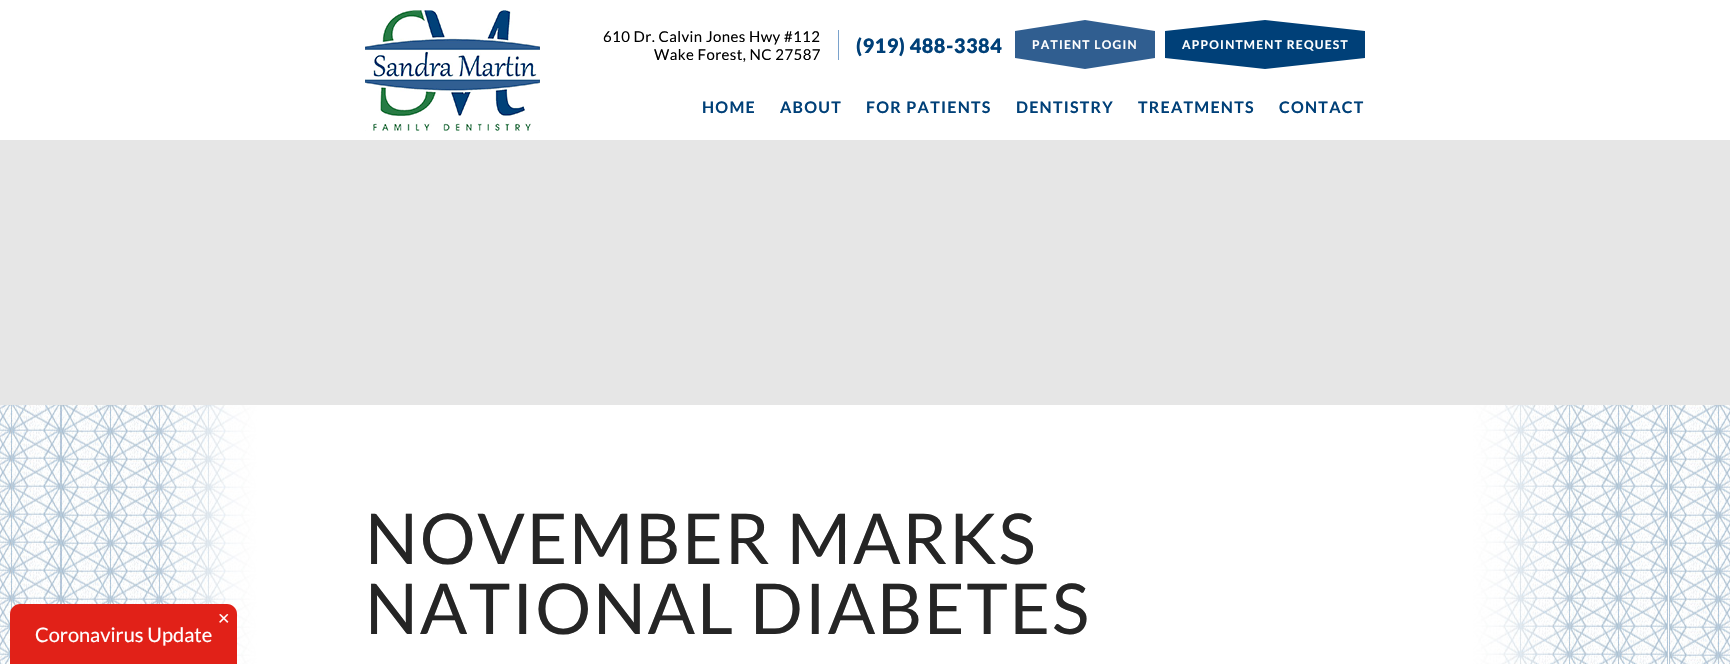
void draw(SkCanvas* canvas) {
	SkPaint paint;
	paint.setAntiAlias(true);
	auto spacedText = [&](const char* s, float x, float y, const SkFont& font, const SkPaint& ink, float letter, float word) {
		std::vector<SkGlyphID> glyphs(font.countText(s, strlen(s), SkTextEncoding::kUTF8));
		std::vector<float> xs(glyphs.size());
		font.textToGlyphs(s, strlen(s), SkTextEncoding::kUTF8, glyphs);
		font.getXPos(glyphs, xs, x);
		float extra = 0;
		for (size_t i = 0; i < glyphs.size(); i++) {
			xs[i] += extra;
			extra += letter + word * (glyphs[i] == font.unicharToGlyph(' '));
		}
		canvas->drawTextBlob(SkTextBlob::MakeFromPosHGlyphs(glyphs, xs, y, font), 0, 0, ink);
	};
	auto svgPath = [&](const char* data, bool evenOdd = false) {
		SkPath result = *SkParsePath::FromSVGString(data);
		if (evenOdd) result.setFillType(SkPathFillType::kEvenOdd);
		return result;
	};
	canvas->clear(0xffe6e6e6);
	paint.setColor(0xffffffff);
	canvas->drawRect(SkRect::MakeXYWH(0, 0, 1730, 140), paint);
	canvas->drawImageRect(SkImages::DeferredFromEncodedData(SkData::MakeFromFileName("img1.png")), SkRect::MakeXYWH(365, 10, 175, 121), SkSamplingOptions());
	SkFont f1(fontMgr->matchFamilyStyle("Lato", SkFontStyle::Normal()), 15);
	f1.setSubpixel(true);
	paint.setColor(0xff000000);
	spacedText("610 Dr. Calvin Jones Hwy #112", 603, 42, f1, paint, 0.4, 0);
	spacedText("Wake Forest, NC 27587", 654, 60, f1, paint, 0.4, 0);
	paint.setColor(0xff7aa2cc);
	canvas->drawRect(SkRect::MakeXYWH(838, 30, 1, 30), paint);
	SkFont f2(fontMgr->matchFamilyStyle("Lato", SkFontStyle(900, SkFontStyle::kNormal_Width, SkFontStyle::kUpright_Slant)), 20);
	f2.setSubpixel(true);
	paint.setColor(0xff004078);
	spacedText("(919) 488-3384", 856, 53, f2, paint, 0.5, 0);
	paint.setColor(0xff305e90);
	canvas->drawRect(SkRect::MakeXYWH(1015, 31, 140, 27), paint);
	canvas->drawPath(svgPath("M1155 31H1015L1085 20Z"), paint);
	SkFont f3(fontMgr->matchFamilyStyle("Lato", SkFontStyle::Bold()), 12);
	f3.setSubpixel(true);
	paint.setColor(0xffffffff);
	spacedText("PATIENT LOGIN", 1032, 49, f3, paint, 1.25, 0);
	paint.setColor(0xff305e90);
	canvas->drawPath(svgPath("M1015 58H1155L1085 69Z"), paint);
	paint.setColor(0xff004078);
	canvas->drawRect(SkRect::MakeXYWH(1165, 31, 200, 27), paint);
	canvas->drawPath(svgPath("M1365 31H1165L1265 20Z"), paint);
	paint.setColor(0xffffffff);
	spacedText("APPOINTMENT REQUEST", 1182, 49, f3, paint, 1.25, 0);
	paint.setColor(0xff004078);
	canvas->drawPath(svgPath("M1165 58H1365L1265 69Z"), paint);
	SkFont f4(fontMgr->matchFamilyStyle("Lato", SkFontStyle::Bold()), 16);
	f4.setSubpixel(true);
	spacedText("HOME", 702, 113, f4, paint, 1.25, 0);
	spacedText("ABOUT", 780, 113, f4, paint, 1.25, 0);
	spacedText("FOR PATIENTS", 866, 113, f4, paint, 1.25, 0);
	spacedText("DENTISTRY", 1016, 113, f4, paint, 1.25, 0);
	spacedText("TREATMENTS", 1138, 113, f4, paint, 1.25, 0);
	spacedText("CONTACT", 1279, 113, f4, paint, 1.25, 0);
	canvas->drawImageRect(SkImages::DeferredFromEncodedData(SkData::MakeFromFileName("img2.png")), SkRect::MakeXYWH(0, 405, 1730, 259), SkSamplingOptions());
	paint.setColor(0xffe12118);
	canvas->drawPath(svgPath("M20 604H227C232.5 604 237 608.5 237 614V664H10V614C10 608.5 14.5 604 20 604Z"), paint);
	SkFont f5(fontMgr->matchFamilyStyle("Lato", SkFontStyle::Normal()), 20);
	f5.setSubpixel(true);
	paint.setColor(0xffffffff);
	canvas->drawString("×", 218, 625, f5, paint);
	canvas->drawString("Coronavirus Update", 35, 642, f5, paint);
	SkFont f6(fontMgr->matchFamilyStyle("Lato", SkFontStyle::Normal()), 70);
	f6.setSubpixel(true);
	paint.setColor(0xff252525);
	spacedText("NOVEMBER MARKS", 365, 564, f6, paint, 1.75, 0);
	spacedText("NATIONAL DIABETES", 365, 634, f6, paint, 1.75, 0);
}
